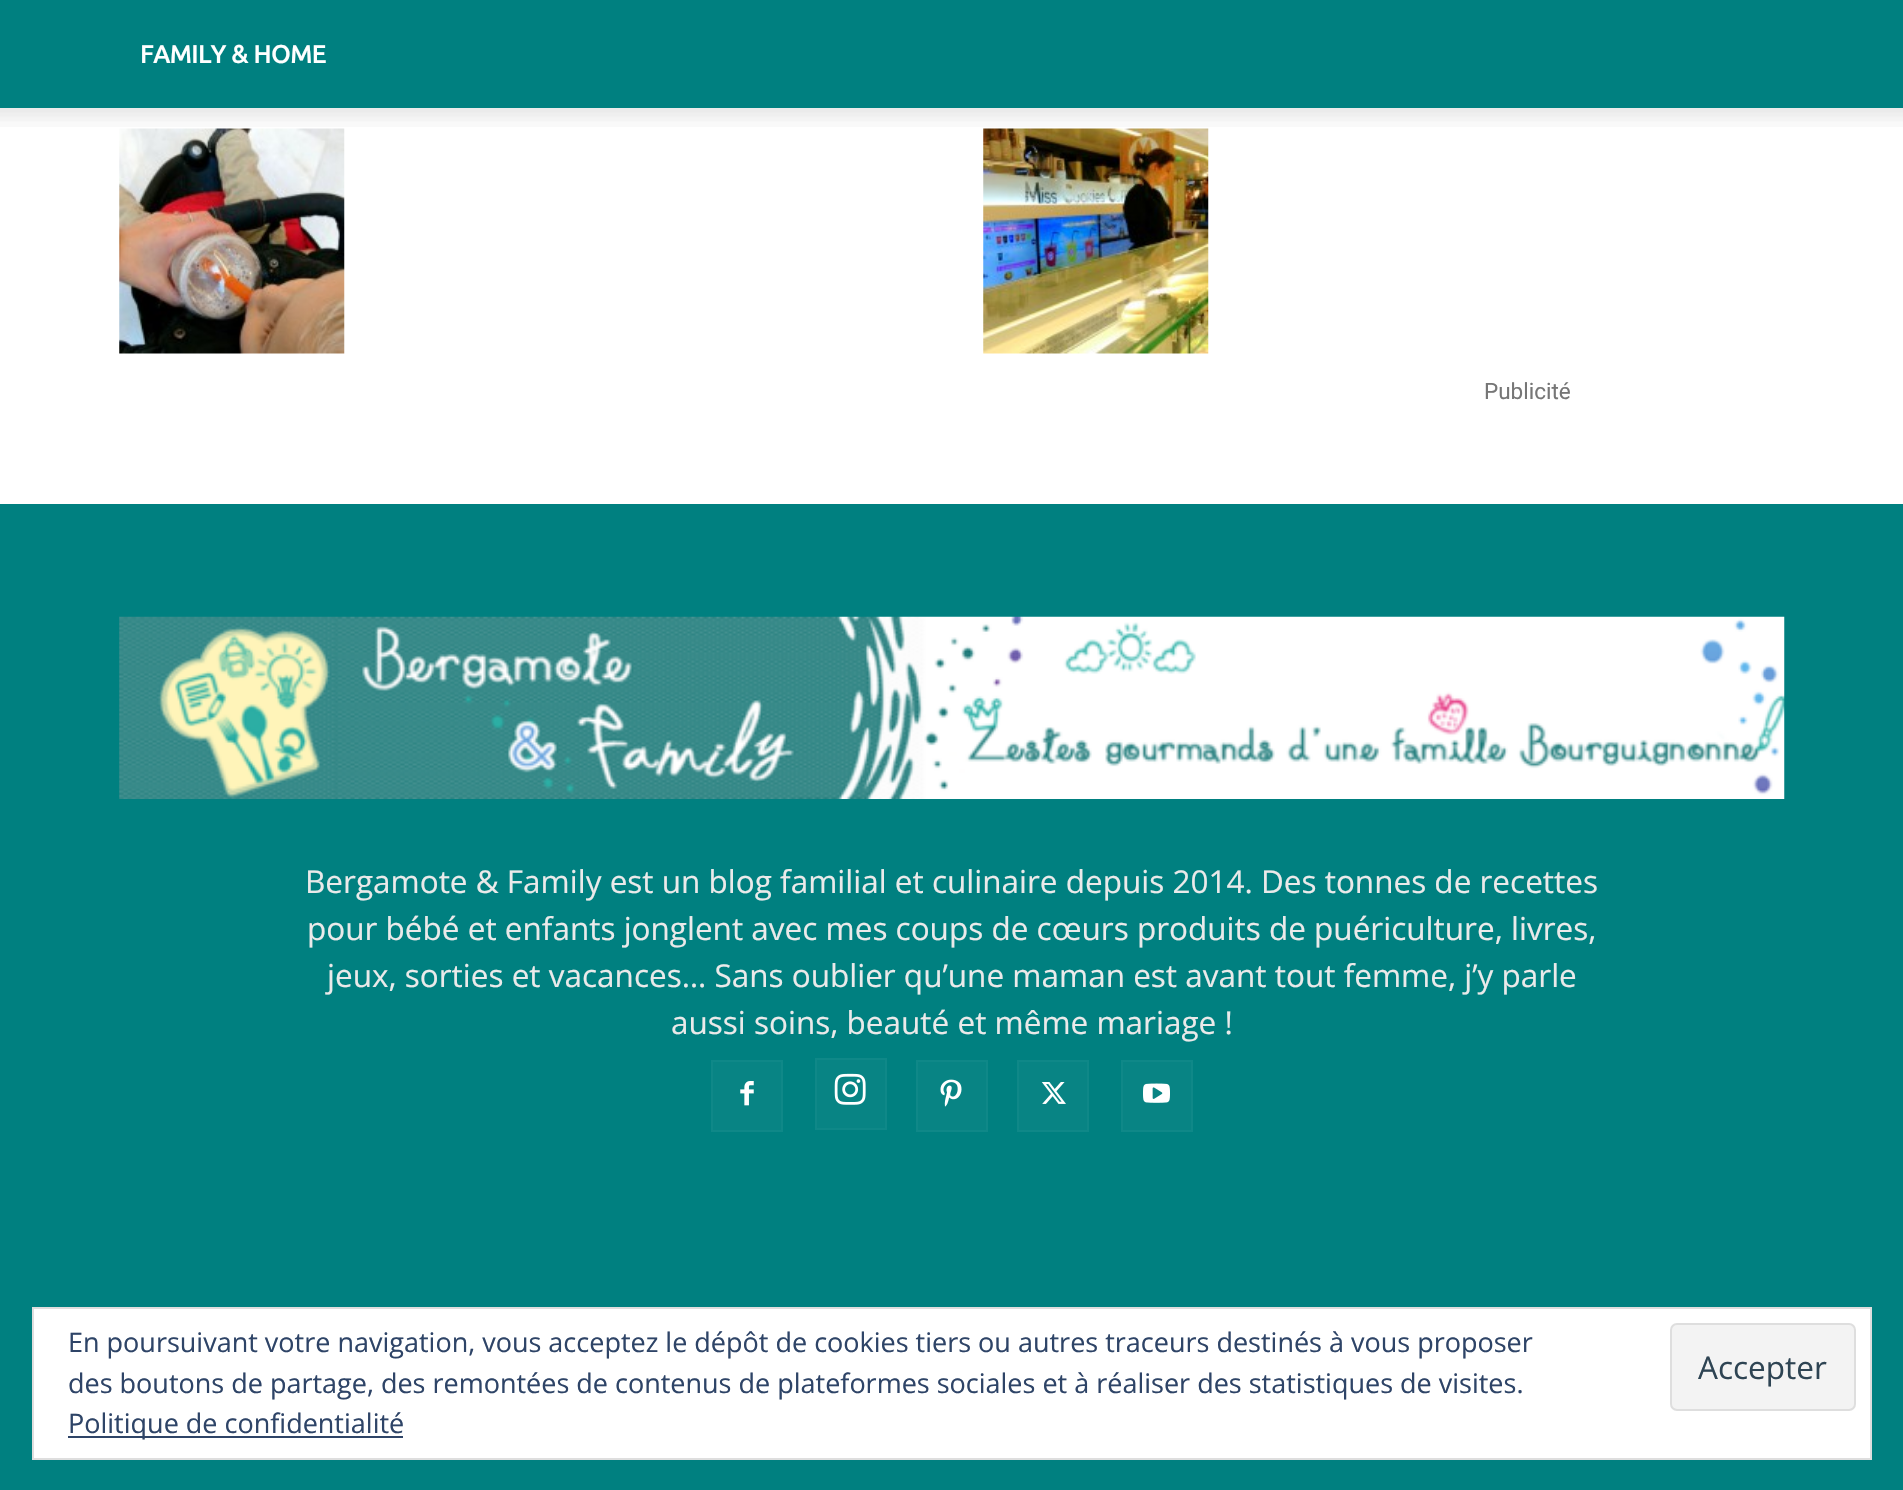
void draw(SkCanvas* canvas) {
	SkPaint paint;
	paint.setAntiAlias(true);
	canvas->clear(0xffffffff);
	paint.setColor(0xff008080);
	canvas->drawRect(SkRect::MakeXYWH(0, 0, 1903, 108), paint);
	SkFont f1(fontMgr->matchFamilyStyle("Ubuntu", SkFontStyle::Bold()), 24.75);
	f1.setSubpixel(true);
	paint.setColor(0xffffffff);
	canvas->drawString("FAMILY & HOME", 140, 63, f1, paint);
	canvas->drawImageRect(SkImages::DeferredFromEncodedData(SkData::MakeFromFileName("img1.png")), SkRect::MakeXYWH(0, 108, 1903, 19), SkSamplingOptions());
	canvas->drawImageRect(SkImages::DeferredFromEncodedData(SkData::MakeFromFileName("img2.png")), SkRect::MakeXYWH(119, 128, 226, 226), SkSamplingOptions());
	canvas->drawImageRect(SkImages::DeferredFromEncodedData(SkData::MakeFromFileName("img3.png")), SkRect::MakeXYWH(983, 128, 226, 226), SkSamplingOptions());
	SkFont f2(fontMgr->matchFamilyStyle("Roboto", SkFontStyle::Normal()), 22.5);
	f2.setSubpixel(true);
	paint.setColor(0xff767676);
	canvas->drawString("Publicité", 1484, 399, f2, paint);
	paint.setColor(0xff008080);
	canvas->drawRect(SkRect::MakeXYWH(0, 504, 1903, 986), paint);
	canvas->drawImageRect(SkImages::DeferredFromEncodedData(SkData::MakeFromFileName("img4.png")), SkRect::MakeXYWH(119, 616, 1666, 183), SkSamplingOptions());
	SkFont f3(fontMgr->matchFamilyStyle("Open Sans", SkFontStyle::Normal()), 31.5);
	f3.setSubpixel(true);
	paint.setColor(0xffeaeaea);
	canvas->drawString("Bergamote & Family est un blog familial et culinaire depuis 2014. Des tonnes de recettes", 305, 893, f3, paint);
	canvas->drawString("pour bébé et enfants jonglent avec mes coups de cœurs produits de puériculture, livres,", 307, 940, f3, paint);
	canvas->drawString("jeux, sorties et vacances… Sans oublier qu’une maman est avant tout femme, j’y parle", 327, 987, f3, paint);
	canvas->drawString("aussi soins, beauté et même mariage !", 671, 1034, f3, paint);
	paint.setColor(0xff088484);
	canvas->drawRect(SkRect::MakeXYWH(713, 1062, 68, 68), paint);
	canvas->drawImageRect(SkImages::DeferredFromEncodedData(SkData::MakeFromFileName("img5.png")), SkRect::MakeXYWH(740, 1081, 14, 25), SkSamplingOptions());
	paint.setStroke(true);
	paint.setStrokeWidth(2);
	paint.setColor(0xff0f8888);
	canvas->drawRect(SkRect::MakeXYWH(712, 1061, 70, 70), paint);
	paint.setStroke(false);
	paint.setColor(0xff088484);
	canvas->drawRect(SkRect::MakeXYWH(817, 1060, 68, 68), paint);
	canvas->drawImageRect(SkImages::DeferredFromEncodedData(SkData::MakeFromFileName("img6.png")), SkRect::MakeXYWH(834, 1073, 32, 32), SkSamplingOptions());
	paint.setStroke(true);
	paint.setColor(0xff0f8888);
	canvas->drawRect(SkRect::MakeXYWH(816, 1059, 70, 70), paint);
	paint.setStroke(false);
	paint.setColor(0xff088484);
	canvas->drawRect(SkRect::MakeXYWH(918, 1062, 68, 68), paint);
	canvas->drawImageRect(SkImages::DeferredFromEncodedData(SkData::MakeFromFileName("img7.png")), SkRect::MakeXYWH(940, 1079, 22, 28), SkSamplingOptions());
	paint.setStroke(true);
	paint.setColor(0xff0f8888);
	canvas->drawRect(SkRect::MakeXYWH(917, 1061, 70, 70), paint);
	paint.setStroke(false);
	paint.setColor(0xff088484);
	canvas->drawRect(SkRect::MakeXYWH(1019, 1062, 68, 68), paint);
	canvas->drawImageRect(SkImages::DeferredFromEncodedData(SkData::MakeFromFileName("img8.png")), SkRect::MakeXYWH(1041, 1082, 25, 22), SkSamplingOptions());
	paint.setStroke(true);
	paint.setColor(0xff0f8888);
	canvas->drawRect(SkRect::MakeXYWH(1018, 1061, 70, 70), paint);
	paint.setStroke(false);
	paint.setColor(0xff088484);
	canvas->drawRect(SkRect::MakeXYWH(1123, 1062, 68, 68), paint);
	canvas->drawImageRect(SkImages::DeferredFromEncodedData(SkData::MakeFromFileName("img9.png")), SkRect::MakeXYWH(1143, 1083, 27, 20), SkSamplingOptions());
	paint.setStroke(true);
	paint.setColor(0xff0f8888);
	canvas->drawRect(SkRect::MakeXYWH(1122, 1061, 70, 70), paint);
	paint.setStroke(false);
	paint.setColor(0xffffffff);
	canvas->drawRect(SkRect::MakeXYWH(33, 1308, 1838, 151), paint);
	paint.setStroke(true);
	paint.setColor(0xffdedede);
	canvas->drawRect(SkRect::MakeXYWH(33, 1308, 1838, 151), paint);
	SkFont f4(fontMgr->matchFamilyStyle("Open Sans", SkFontStyle::Normal()), 27);
	f4.setSubpixel(true);
	paint.setStroke(false);
	paint.setColor(0xff2e4467);
	canvas->drawString("En poursuivant votre navigation, vous acceptez le dépôt de cookies tiers ou autres traceurs destinés à vous proposer", 68, 1352, f4, paint);
	canvas->drawString("des boutons de partage, des remontées de contenus de plateformes sociales et à réaliser des statistiques de visites.", 68, 1393, f4, paint);
	paint.setColor(0xfff3f3f3);
	canvas->drawRoundRect(SkRect::MakeXYWH(1671, 1324, 184, 86), 6, 6, paint);
	paint.setStroke(true);
	paint.setColor(0xffdedede);
	canvas->drawRoundRect(SkRect::MakeXYWH(1671, 1324, 184, 86), 6, 6, paint);
	paint.setStroke(false);
	paint.setColor(0xff2e4453);
	canvas->drawString("Accepter", 1698, 1379, f3, paint);
	paint.setColor(0xff2e4467);
	canvas->drawRect(SkRect::MakeXYWH(68, 1436, 335, 2), paint);
	canvas->drawString("Politique de confidentialité", 68, 1433, f4, paint);
}
